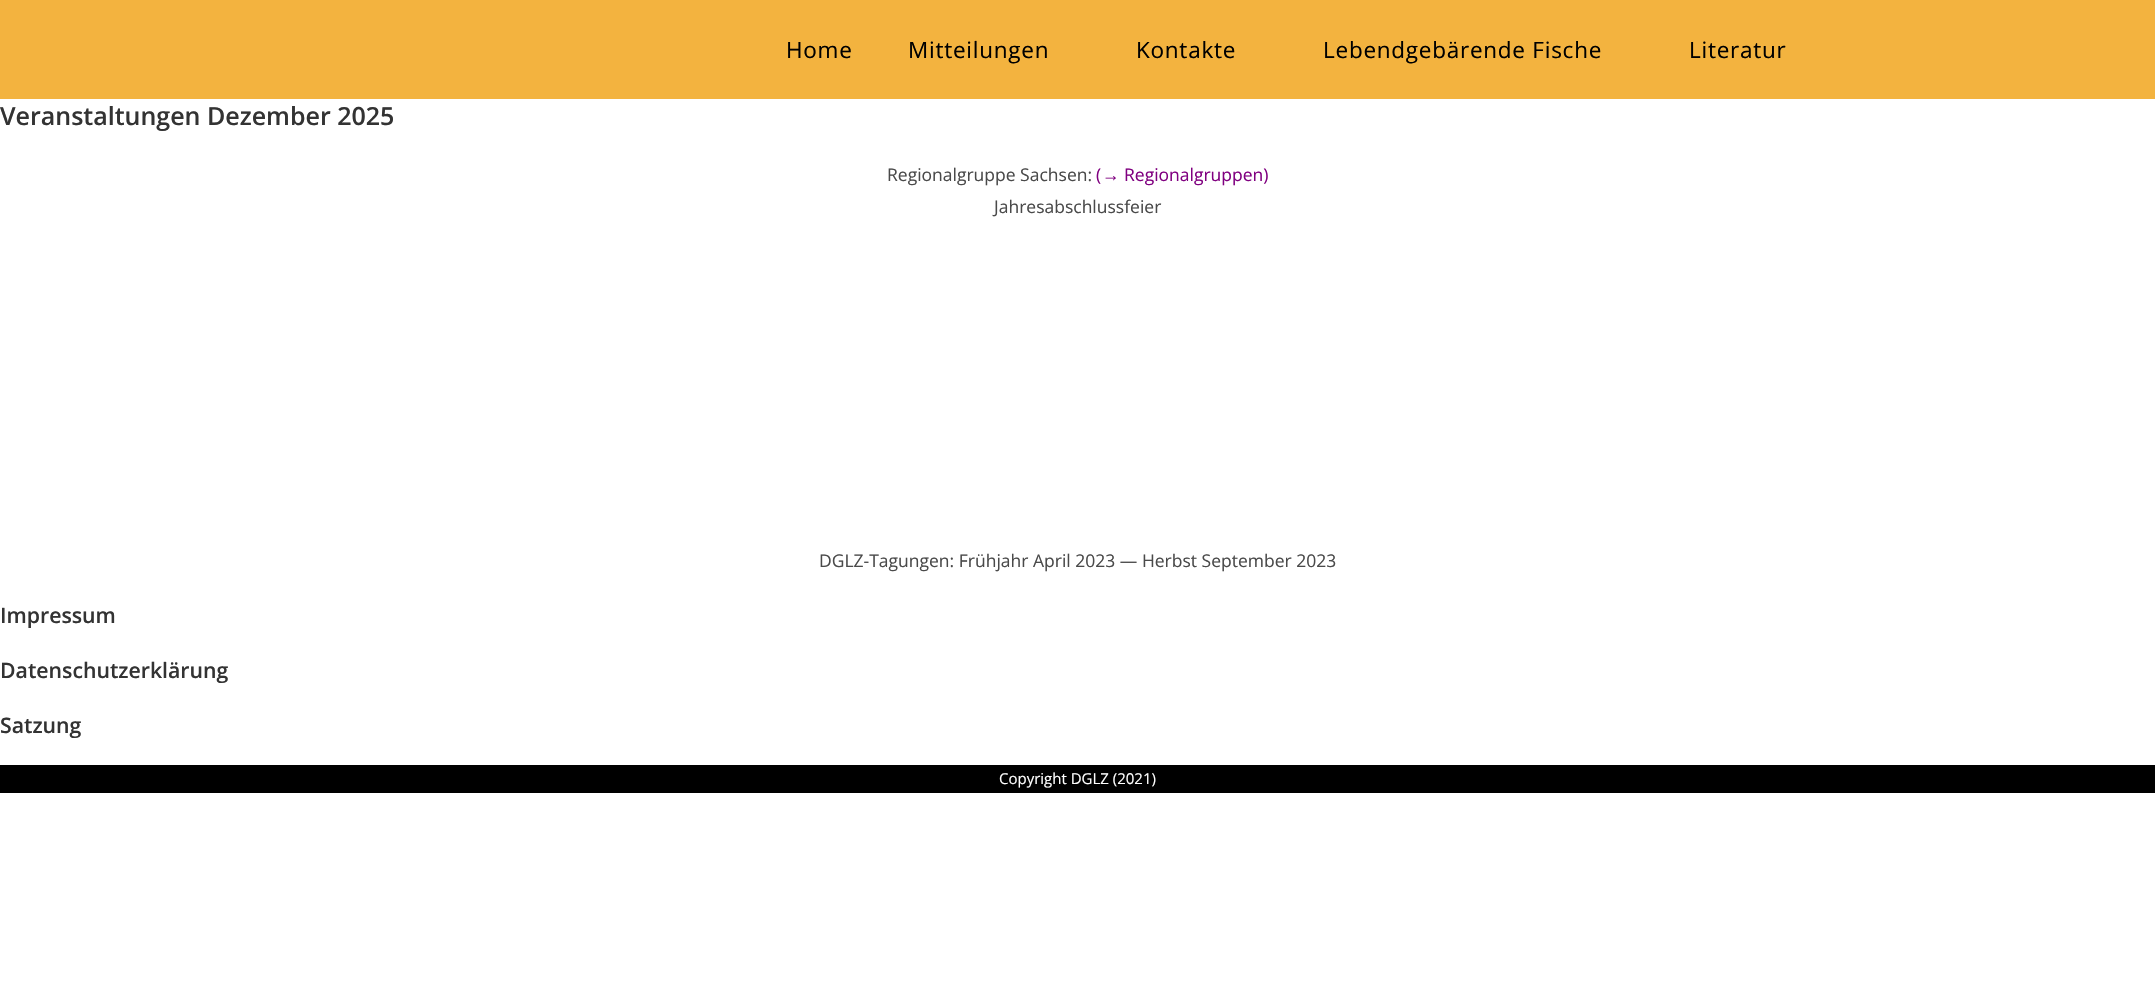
void draw(SkCanvas* canvas) {
	SkPaint paint;
	paint.setAntiAlias(true);
	auto spacedText = [&](const char* s, float x, float y, const SkFont& font, const SkPaint& ink, float letter, float word) {
		std::vector<SkGlyphID> glyphs(font.countText(s, strlen(s), SkTextEncoding::kUTF8));
		std::vector<float> xs(glyphs.size());
		font.textToGlyphs(s, strlen(s), SkTextEncoding::kUTF8, glyphs);
		font.getXPos(glyphs, xs, x);
		float extra = 0;
		for (size_t i = 0; i < glyphs.size(); i++) {
			xs[i] += extra;
			extra += letter + word * (glyphs[i] == font.unicharToGlyph(' '));
		}
		canvas->drawTextBlob(SkTextBlob::MakeFromPosHGlyphs(glyphs, xs, y, font), 0, 0, ink);
	};
	canvas->clear(0xffffffff);
	paint.setColor(0xfff3b33f);
	canvas->drawRect(SkRect::MakeXYWH(0, 0, 2155, 99), paint);
	SkFont f1(fontMgr->matchFamilyStyle("Open Sans", SkFontStyle::Normal()), 22.5);
	f1.setSubpixel(true);
	paint.setColor(0xff000000);
	spacedText("Home", 786, 58, f1, paint, 0.75, 0);
	spacedText("Mitteilungen", 908, 58, f1, paint, 0.75, 0);
	spacedText("Kontakte", 1136, 58, f1, paint, 0.75, 0);
	spacedText("Lebendgebärende Fische", 1323, 58, f1, paint, 0.75, 0);
	spacedText("Literatur", 1689, 58, f1, paint, 0.75, 0);
	SkFont f2(fontMgr->matchFamilyStyle("Open Sans", SkFontStyle(600, SkFontStyle::kNormal_Width, SkFontStyle::kUpright_Slant)), 25);
	f2.setSubpixel(true);
	paint.setColor(0xff333333);
	canvas->drawString("Veranstaltungen Dezember 2025", 0, 125, f2, paint);
	SkFont f3(fontMgr->matchFamilyStyle("Open Sans", SkFontStyle::Normal()), 17.5);
	f3.setSubpixel(true);
	paint.setColor(0xff4a4a4a);
	canvas->drawString("Regionalgruppe Sachsen:", 887, 181, f3, paint);
	paint.setColor(0xff800080);
	canvas->drawString("(", 1096, 181, f3, paint);
	SkFont f4(fontMgr->matchFamilyStyle("Liberation Sans", SkFontStyle::Normal()), 17.5);
	f4.setSubpixel(true);
	canvas->drawString("→", 1102, 181, f4, paint);
	canvas->drawString("Regionalgruppen)", 1124, 181, f3, paint);
	paint.setColor(0xff4a4a4a);
	canvas->drawString("Jahresabschlussfeier", 994, 213, f3, paint);
	canvas->drawString("DGLZ-Tagungen: Frühjahr April 2023 — Herbst September 2023", 819, 567, f3, paint);
	SkFont f5(fontMgr->matchFamilyStyle("Open Sans", SkFontStyle(600, SkFontStyle::kNormal_Width, SkFontStyle::kUpright_Slant)), 21.25);
	f5.setSubpixel(true);
	paint.setColor(0xff333333);
	canvas->drawString("Impressum", 0, 623, f5, paint);
	canvas->drawString("Datenschutzerklärung", 0, 678, f5, paint);
	canvas->drawString("Satzung", 0, 733, f5, paint);
	paint.setColor(0xff000000);
	canvas->drawRect(SkRect::MakeXYWH(0, 765, 2155, 28), paint);
	SkFont f6(fontMgr->matchFamilyStyle("Open Sans", SkFontStyle::Normal()), 15);
	f6.setSubpixel(true);
	paint.setColor(0xffffffff);
	canvas->drawString("Copyright DGLZ (2021)", 999, 784, f6, paint);
}
